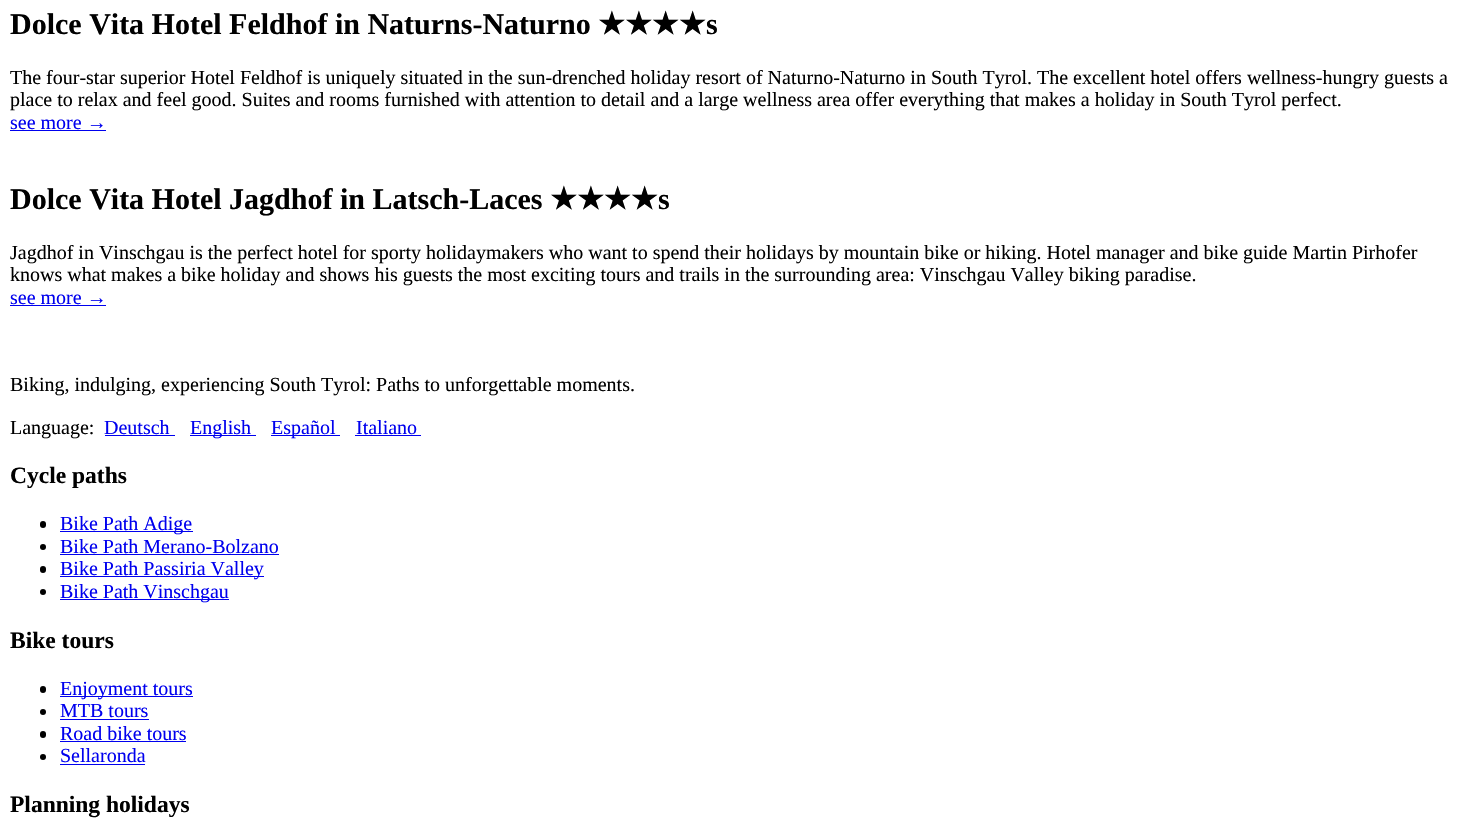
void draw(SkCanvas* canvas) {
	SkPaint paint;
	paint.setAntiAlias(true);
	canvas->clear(0xffffffff);
	SkFont f1(fontMgr->matchFamilyStyle("Liberation Serif", SkFontStyle::Bold()), 30);
	f1.setSubpixel(true);
	paint.setColor(0xff000000);
	canvas->drawString("Dolce Vita Hotel Feldhof in Naturns-Naturno", 10, 34, f1, paint);
	SkFont f2(fontMgr->matchFamilyStyle("DejaVu Sans", SkFontStyle::Bold()), 30);
	f2.setSubpixel(true);
	canvas->drawString("★★★★", 598, 34, f2, paint);
	canvas->drawString("s", 706, 34, f1, paint);
	SkFont f3(fontMgr->matchFamilyStyle("Liberation Serif", SkFontStyle::Normal()), 20);
	f3.setSubpixel(true);
	canvas->drawString("The four-star superior Hotel Feldhof is uniquely situated in the sun-drenched holiday resort of Naturno-Naturno in South Tyrol. The excellent hotel offers wellness-hungry guests a", 10, 84, f3, paint);
	canvas->drawString("place to relax and feel good. Suites and rooms furnished with attention to detail and a large wellness area offer everything that makes a holiday in South Tyrol perfect.", 10, 106, f3, paint);
	paint.setColor(0xff0000ee);
	canvas->drawString("see more →", 10, 129, f3, paint);
	canvas->drawRect(SkRect::MakeXYWH(10, 130, 96, 1), paint);
	paint.setColor(0xff000000);
	canvas->drawString("Dolce Vita Hotel Jagdhof in Latsch-Laces", 10, 209, f1, paint);
	canvas->drawString("★★★★", 550, 209, f2, paint);
	canvas->drawString("s", 658, 209, f1, paint);
	canvas->drawString("Jagdhof in Vinschgau is the perfect hotel for sporty holidaymakers who want to spend their holidays by mountain bike or hiking. Hotel manager and bike guide Martin Pirhofer", 10, 259, f3, paint);
	canvas->drawString("knows what makes a bike holiday and shows his guests the most exciting tours and trails in the surrounding area: Vinschgau Valley biking paradise.", 10, 281, f3, paint);
	paint.setColor(0xff0000ee);
	canvas->drawString("see more →", 10, 304, f3, paint);
	canvas->drawRect(SkRect::MakeXYWH(10, 305, 96, 1), paint);
	paint.setColor(0xff000000);
	canvas->drawString("Biking, indulging, experiencing South Tyrol: Paths to unforgettable moments.", 10, 391, f3, paint);
	canvas->drawString("Language:", 10, 434, f3, paint);
	paint.setColor(0xff0000ee);
	canvas->drawString("Deutsch", 104, 434, f3, paint);
	canvas->drawRect(SkRect::MakeXYWH(105, 435, 70, 1), paint);
	canvas->drawRect(SkRect::MakeXYWH(190, 435, 66, 1), paint);
	canvas->drawString("English", 190, 434, f3, paint);
	canvas->drawRect(SkRect::MakeXYWH(271, 435, 69, 1), paint);
	canvas->drawString("Español", 271, 434, f3, paint);
	canvas->drawString("Italiano", 356, 434, f3, paint);
	canvas->drawRect(SkRect::MakeXYWH(355, 435, 66, 1), paint);
	SkFont f4(fontMgr->matchFamilyStyle("Liberation Serif", SkFontStyle::Bold()), 23.5);
	f4.setSubpixel(true);
	paint.setColor(0xff000000);
	canvas->drawString("Cycle paths", 10, 483, f4, paint);
	canvas->drawRoundRect(SkRect::MakeXYWH(40, 521, 6, 7), 3, 3, paint);
	paint.setColor(0xff0000ee);
	canvas->drawRect(SkRect::MakeXYWH(60, 531, 133, 1), paint);
	canvas->drawString("Bike Path Adige", 60, 530, f3, paint);
	paint.setColor(0xff000000);
	canvas->drawCircle(43, 547, 3, paint);
	paint.setColor(0xff0000ee);
	canvas->drawString("Bike Path Merano-Bolzano", 60, 553, f3, paint);
	canvas->drawRect(SkRect::MakeXYWH(60, 554, 219, 1), paint);
	paint.setColor(0xff000000);
	canvas->drawRoundRect(SkRect::MakeXYWH(40, 566, 6, 7), 3, 3, paint);
	paint.setColor(0xff0000ee);
	canvas->drawRect(SkRect::MakeXYWH(60, 576, 204, 1), paint);
	canvas->drawString("Bike Path Passiria Valley", 60, 575, f3, paint);
	paint.setColor(0xff000000);
	canvas->drawCircle(43, 592, 3, paint);
	paint.setColor(0xff0000ee);
	canvas->drawRect(SkRect::MakeXYWH(60, 599, 169, 1), paint);
	canvas->drawString("Bike Path Vinschgau", 60, 598, f3, paint);
	paint.setColor(0xff000000);
	canvas->drawString("Bike tours", 10, 648, f4, paint);
	canvas->drawRoundRect(SkRect::MakeXYWH(40, 686, 6, 7), 3, 3, paint);
	paint.setColor(0xff0000ee);
	canvas->drawRect(SkRect::MakeXYWH(60, 696, 133, 1), paint);
	canvas->drawString("Enjoyment tours", 60, 695, f3, paint);
	paint.setColor(0xff000000);
	canvas->drawCircle(43, 712, 3, paint);
	paint.setColor(0xff0000ee);
	canvas->drawString("MTB tours", 60, 717, f3, paint);
	canvas->drawRect(SkRect::MakeXYWH(60, 719, 89, 1), paint);
	paint.setColor(0xff000000);
	canvas->drawRoundRect(SkRect::MakeXYWH(40, 731, 6, 7), 3, 3, paint);
	paint.setColor(0xff0000ee);
	canvas->drawString("Road bike tours", 60, 740, f3, paint);
	canvas->drawRect(SkRect::MakeXYWH(60, 741, 126, 1), paint);
	paint.setColor(0xff000000);
	canvas->drawCircle(43, 757, 3, paint);
	paint.setColor(0xff0000ee);
	canvas->drawString("Sellaronda", 60, 762, f3, paint);
	canvas->drawRect(SkRect::MakeXYWH(60, 764, 85, 1), paint);
	paint.setColor(0xff000000);
	canvas->drawString("Planning holidays", 10, 812, f4, paint);
}
